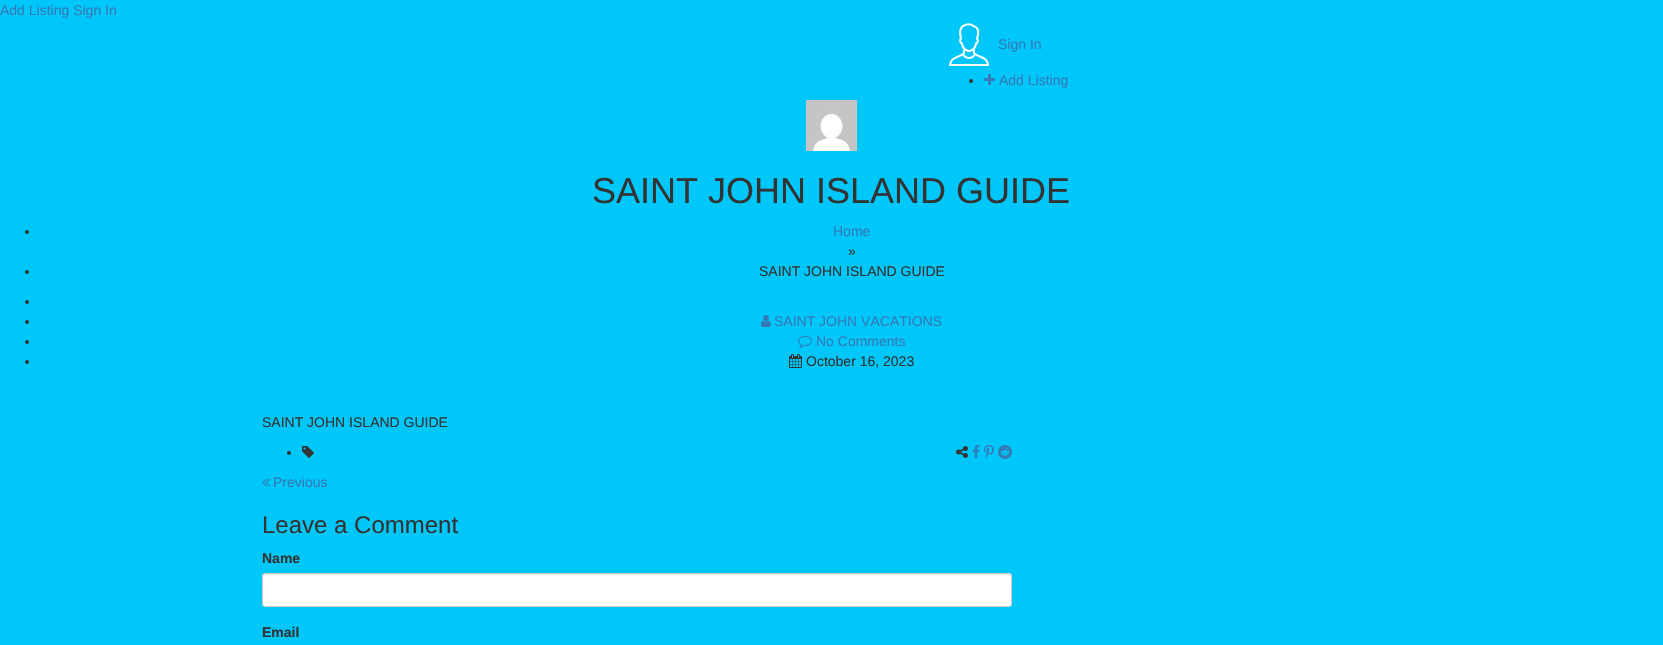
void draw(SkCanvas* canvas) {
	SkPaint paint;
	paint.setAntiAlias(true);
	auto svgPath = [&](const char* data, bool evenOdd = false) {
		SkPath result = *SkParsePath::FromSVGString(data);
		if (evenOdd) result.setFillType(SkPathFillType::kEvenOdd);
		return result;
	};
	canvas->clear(0xff00c7f9);
	SkFont f1(fontMgr->matchFamilyStyle("Liberation Sans", SkFontStyle::Normal()), 14);
	f1.setSubpixel(true);
	paint.setColor(0xff337ab7);
	canvas->drawString("Add Listing Sign In", 0, 15, f1, paint);
	canvas->drawImageRect(SkImages::DeferredFromEncodedData(SkData::MakeFromFileName("img1.png")), SkRect::MakeXYWH(948, 23, 42, 43), SkSamplingOptions());
	canvas->drawString("Sign In", 998, 49, f1, paint);
	paint.setColor(0xff333333);
	canvas->drawCircle(971, 81, 2, paint);
	canvas->drawImageRect(SkImages::DeferredFromEncodedData(SkData::MakeFromFileName("img2.png")), SkRect::MakeXYWH(984, 74, 11, 11), SkSamplingOptions());
	paint.setColor(0xff337ab7);
	canvas->drawString("Add Listing", 999, 85, f1, paint);
	canvas->drawImageRect(SkImages::DeferredFromEncodedData(SkData::MakeFromFileName("img3.png")), SkRect::MakeXYWH(806, 100, 51, 51), SkSamplingOptions());
	SkFont f2(fontMgr->matchFamilyStyle("Liberation Sans", SkFontStyle::Normal()), 36);
	f2.setSubpixel(true);
	paint.setColor(0xff333333);
	canvas->drawString("SAINT JOHN ISLAND GUIDE", 592, 203, f2, paint);
	canvas->drawCircle(27, 232, 2, paint);
	paint.setColor(0xff337ab7);
	canvas->drawString("Home", 833, 236, f1, paint);
	paint.setColor(0xff333333);
	canvas->drawString("»", 848, 256, f1, paint);
	canvas->drawCircle(27, 272, 2, paint);
	canvas->drawString("SAINT JOHN ISLAND GUIDE", 759, 276, f1, paint);
	canvas->drawCircle(27, 302, 2, paint);
	canvas->drawCircle(27, 322, 2, paint);
	canvas->drawImageRect(SkImages::DeferredFromEncodedData(SkData::MakeFromFileName("img4.png")), SkRect::MakeXYWH(761, 315, 10, 12), SkSamplingOptions());
	paint.setColor(0xff337ab7);
	canvas->drawString("SAINT JOHN VACATIONS", 774, 326, f1, paint);
	paint.setColor(0xff333333);
	canvas->drawCircle(27, 342, 2, paint);
	canvas->drawImageRect(SkImages::DeferredFromEncodedData(SkData::MakeFromFileName("img5.png")), SkRect::MakeXYWH(798, 336, 14, 12), SkSamplingOptions());
	paint.setColor(0xff337ab7);
	canvas->drawString("No Comments", 816, 346, f1, paint);
	paint.setColor(0xff333333);
	canvas->drawCircle(27, 362, 2, paint);
	canvas->drawImageRect(SkImages::DeferredFromEncodedData(SkData::MakeFromFileName("img6.png")), SkRect::MakeXYWH(789, 354, 13, 14), SkSamplingOptions());
	canvas->drawString("October 16, 2023", 806, 366, f1, paint);
	canvas->drawString("SAINT JOHN ISLAND GUIDE", 262, 427, f1, paint);
	canvas->drawCircle(289, 453, 2, paint);
	canvas->drawImageRect(SkImages::DeferredFromEncodedData(SkData::MakeFromFileName("img7.png")), SkRect::MakeXYWH(302, 446, 12, 12), SkSamplingOptions());
	canvas->drawImageRect(SkImages::DeferredFromEncodedData(SkData::MakeFromFileName("img8.png")), SkRect::MakeXYWH(956, 446, 12, 12), SkSamplingOptions());
	canvas->drawImageRect(SkImages::DeferredFromEncodedData(SkData::MakeFromFileName("img9.png")), SkRect::MakeXYWH(972, 445, 8, 13), SkSamplingOptions());
	canvas->drawImageRect(SkImages::DeferredFromEncodedData(SkData::MakeFromFileName("img10.png")), SkRect::MakeXYWH(984, 445, 10, 13), SkSamplingOptions());
	canvas->drawImageRect(SkImages::DeferredFromEncodedData(SkData::MakeFromFileName("img11.png")), SkRect::MakeXYWH(998, 445, 14, 14), SkSamplingOptions());
	canvas->drawImageRect(SkImages::DeferredFromEncodedData(SkData::MakeFromFileName("img12.png")), SkRect::MakeXYWH(262, 478, 8, 9), SkSamplingOptions());
	paint.setColor(0xff337ab7);
	canvas->drawString("Previous", 273, 487, f1, paint);
	SkFont f3(fontMgr->matchFamilyStyle("Liberation Sans", SkFontStyle::Normal()), 24);
	f3.setSubpixel(true);
	paint.setColor(0xff333333);
	canvas->drawString("Leave a Comment", 262, 533, f3, paint);
	SkFont f4(fontMgr->matchFamilyStyle("Liberation Sans", SkFontStyle::Bold()), 14);
	f4.setSubpixel(true);
	canvas->drawString("Name", 262, 563, f4, paint);
	paint.setColor(0xffffffff);
	canvas->drawRoundRect(SkRect::MakeXYWH(262, 573, 750, 34), 4, 4, paint);
	paint.setColor(0xffececec);
	canvas->drawPath(svgPath("M266 575H1008C1010 575 1011 576 1011 578C1011 576 1010 574 1008 574H266C264 574 263 576 263 578C263 576 264 575 266 575Z"), paint);
	paint.setStroke(true);
	paint.setStrokeWidth(1);
	paint.setColor(0xffcccccc);
	canvas->drawRoundRect(SkRect::MakeXYWH(262.5, 573.5, 749, 33), 3.5, 3.5, paint);
	paint.setStroke(false);
	paint.setColor(0xff333333);
	canvas->drawString("Email", 262, 637, f4, paint);
}
